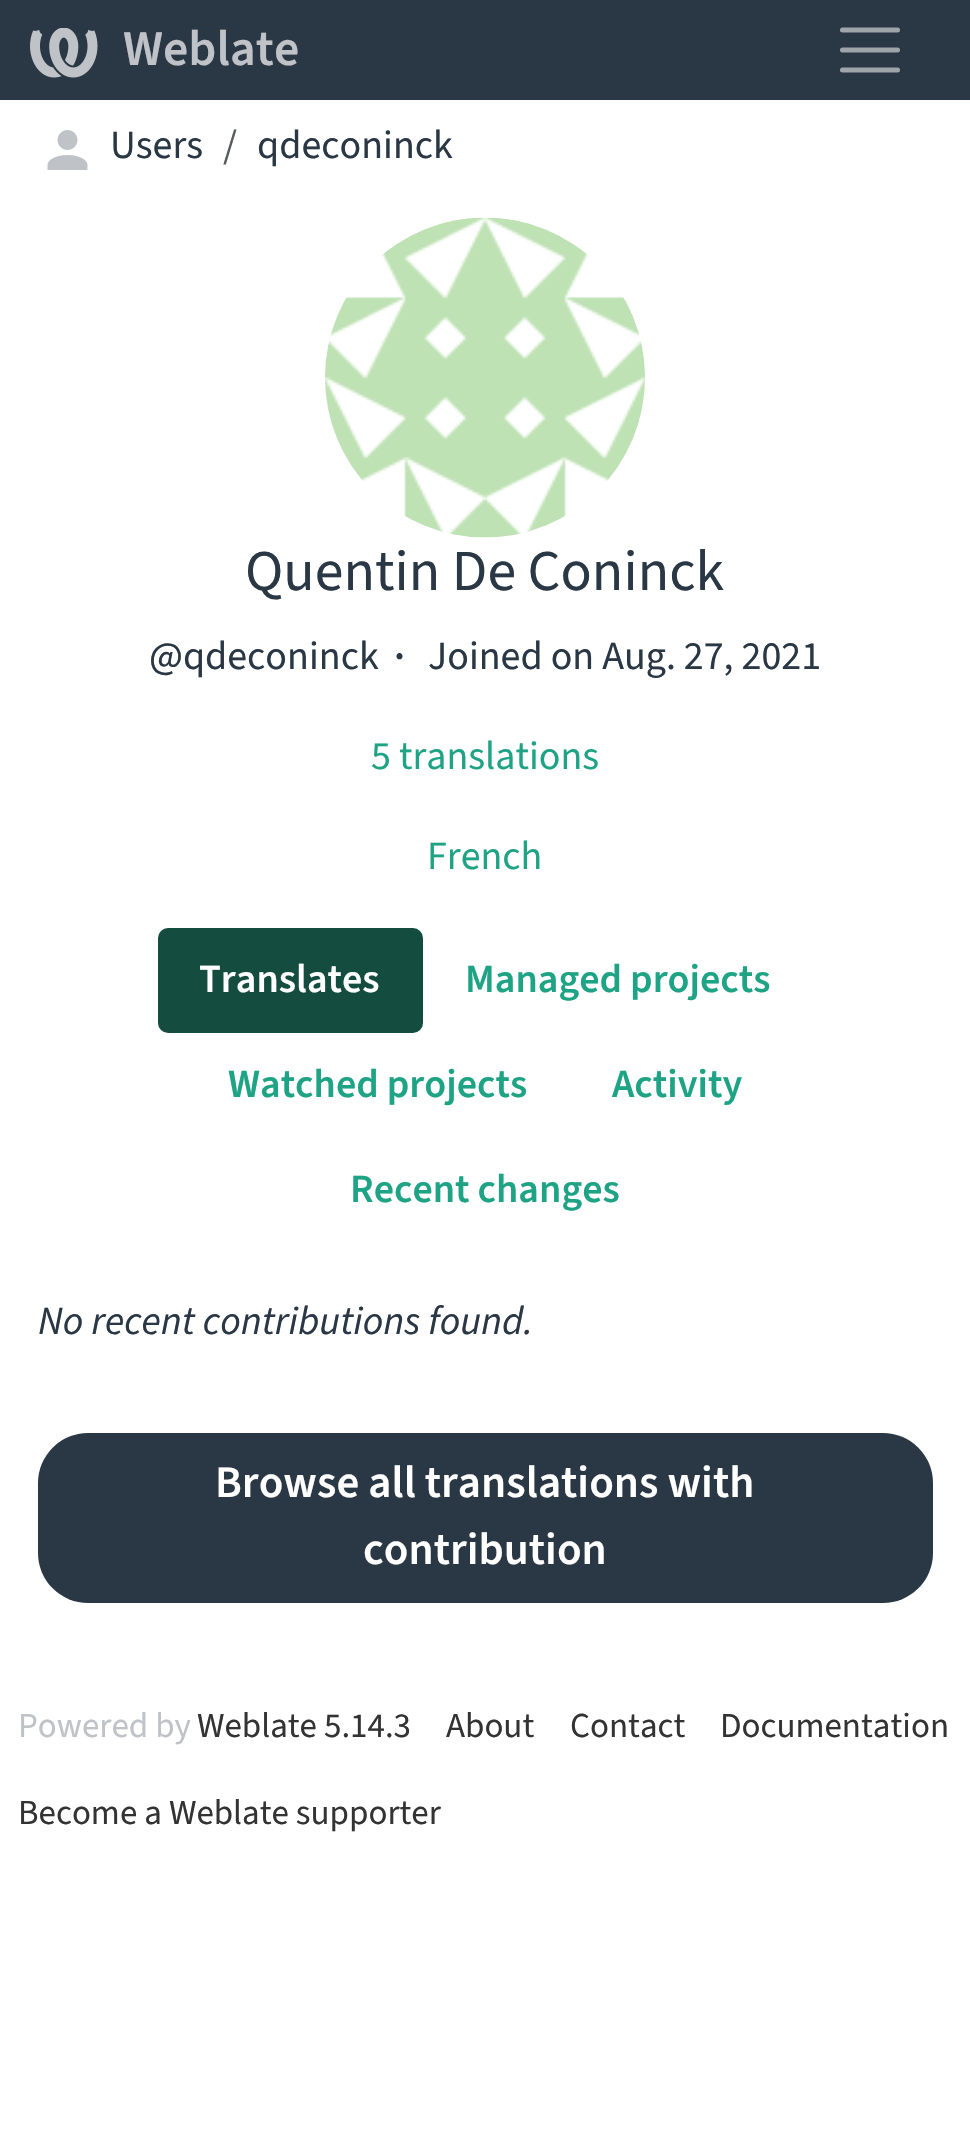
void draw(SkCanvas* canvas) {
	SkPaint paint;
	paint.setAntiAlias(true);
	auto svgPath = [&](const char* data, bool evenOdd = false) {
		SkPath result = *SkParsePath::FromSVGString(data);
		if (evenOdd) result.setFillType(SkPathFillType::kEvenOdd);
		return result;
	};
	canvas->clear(0xffffffff);
	paint.setColor(0xff2a3744);
	canvas->drawRect(SkRect::MakeXYWH(0, 0, 970, 100), paint);
	canvas->drawImageRect(SkImages::DeferredFromEncodedData(SkData::MakeFromFileName("img1.png")), SkRect::MakeXYWH(30, 28, 68, 50), SkSamplingOptions());
	SkFont f1(fontMgr->matchFamilyStyle("Source Sans 3", SkFontStyle(600, SkFontStyle::kNormal_Width, SkFontStyle::kUpright_Slant)), 50);
	f1.setSubpixel(true);
	paint.setColor(0xffbfc3c7);
	canvas->drawString("Weblate", 123, 65, f1, paint);
	paint.setStroke(true);
	paint.setStrokeWidth(5);
	paint.setStrokeCap(SkPaint::kRound_Cap);
	paint.setColor(0xff9fa5ab);
	canvas->drawPath(svgPath("M842.5 30H897.5M842.5 50H897.5M842.5 70H897.5"), paint);
	canvas->drawImageRect(SkImages::DeferredFromEncodedData(SkData::MakeFromFileName("img2.png")), SkRect::MakeXYWH(47, 130, 41, 40), SkSamplingOptions());
	SkFont f2(fontMgr->matchFamilyStyle("Source Sans 3", SkFontStyle::Normal()), 40);
	f2.setSubpixel(true);
	paint.setStroke(false);
	paint.setColor(0xff2a3744);
	canvas->drawString("Users", 110, 158, f2, paint);
	paint.setColor(0xff595c5f);
	canvas->drawString("/", 223, 158, f2, paint);
	paint.setColor(0xff2a3744);
	canvas->drawString("qdeconinck", 257, 158, f2, paint);
	canvas->drawImageRect(SkImages::DeferredFromEncodedData(SkData::MakeFromFileName("img3.png")), SkRect::MakeXYWH(325, 217, 320, 321), SkSamplingOptions());
	SkFont f3(fontMgr->matchFamilyStyle("Source Sans 3", SkFontStyle::Normal()), 57.75);
	f3.setSubpixel(true);
	canvas->drawString("Quentin De Coninck", 245, 590, f3, paint);
	canvas->drawString("@qdeconinck", 149, 669, f2, paint);
	SkFont f4(fontMgr->matchFamilyStyle("Source Sans 3", SkFontStyle(600, SkFontStyle::kNormal_Width, SkFontStyle::kUpright_Slant)), 40);
	f4.setSubpixel(true);
	canvas->drawString("·", 394, 669, f4, paint);
	canvas->drawString("Joined on Aug. 27, 2021", 428, 669, f2, paint);
	paint.setColor(0xff1fa385);
	canvas->drawString("5 translations", 371, 769, f2, paint);
	canvas->drawString("French", 427, 869, f2, paint);
	paint.setColor(0xff144d3f);
	canvas->drawRoundRect(SkRect::MakeXYWH(158, 928, 265, 105), 10, 10, paint);
	paint.setColor(0xffffffff);
	canvas->drawString("Translates", 199, 992, f4, paint);
	paint.setColor(0xff1fa385);
	canvas->drawString("Managed projects", 465, 992, f4, paint);
	canvas->drawString("Watched projects", 228, 1097, f4, paint);
	canvas->drawString("Activity", 612, 1097, f4, paint);
	canvas->drawString("Recent changes", 350, 1202, f4, paint);
	SkFont f5(fontMgr->matchFamilyStyle("Source Sans 3", SkFontStyle::Italic()), 40);
	f5.setSubpixel(true);
	paint.setColor(0xff2a3744);
	canvas->drawString("No recent contributions found.", 38, 1334, f5, paint);
	canvas->drawRoundRect(SkRect::MakeXYWH(38, 1433, 895, 170), 50, 50, paint);
	SkFont f6(fontMgr->matchFamilyStyle("Source Sans 3", SkFontStyle(600, SkFontStyle::kNormal_Width, SkFontStyle::kUpright_Slant)), 45);
	f6.setSubpixel(true);
	paint.setColor(0xffffffff);
	canvas->drawString("Browse all translations with", 215, 1497, f6, paint);
	canvas->drawString("contribution", 363, 1564, f6, paint);
	SkFont f7(fontMgr->matchFamilyStyle("Source Sans 3", SkFontStyle::Normal()), 35);
	f7.setSubpixel(true);
	paint.setColor(0xffbfc3c7);
	canvas->drawString("Powered by", 18, 1737, f7, paint);
	paint.setColor(0xff333333);
	canvas->drawString("Weblate 5.14.3", 197, 1737, f7, paint);
	canvas->drawString("About", 446, 1737, f7, paint);
	canvas->drawString("Contact", 570, 1737, f7, paint);
	canvas->drawString("Documentation", 720, 1737, f7, paint);
	canvas->drawString("Become a Weblate supporter", 18, 1824, f7, paint);
}
